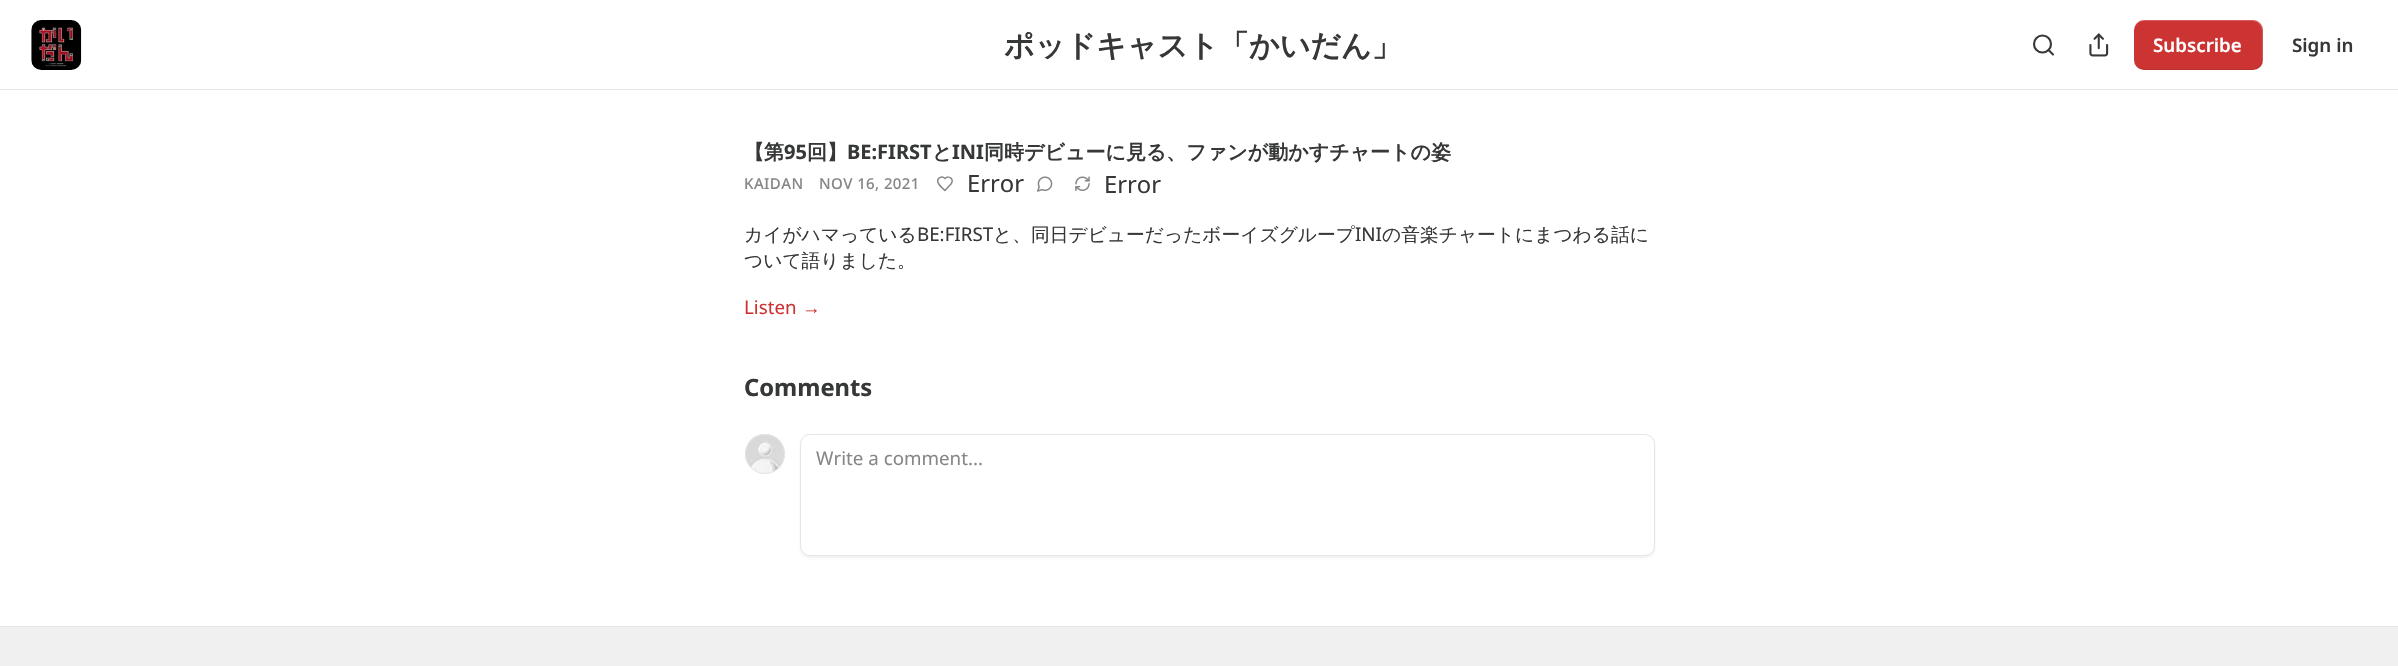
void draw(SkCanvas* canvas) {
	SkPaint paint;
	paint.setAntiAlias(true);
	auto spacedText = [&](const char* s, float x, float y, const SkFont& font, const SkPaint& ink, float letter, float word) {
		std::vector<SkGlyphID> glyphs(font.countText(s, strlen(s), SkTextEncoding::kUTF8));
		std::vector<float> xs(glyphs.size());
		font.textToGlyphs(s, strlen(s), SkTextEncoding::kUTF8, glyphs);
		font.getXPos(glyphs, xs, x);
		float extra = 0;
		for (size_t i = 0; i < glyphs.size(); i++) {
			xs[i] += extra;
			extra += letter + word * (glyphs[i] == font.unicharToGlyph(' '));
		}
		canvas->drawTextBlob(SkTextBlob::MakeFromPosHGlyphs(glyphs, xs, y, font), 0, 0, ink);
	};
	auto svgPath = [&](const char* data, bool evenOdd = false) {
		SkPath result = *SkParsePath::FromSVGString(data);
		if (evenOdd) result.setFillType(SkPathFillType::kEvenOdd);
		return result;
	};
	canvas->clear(0xffffffff);
	paint.setColor(0xffe6e6e6);
	canvas->drawRect(SkRect::MakeXYWH(0, 89, 2398, 1), paint);
	canvas->drawImageRect(SkImages::DeferredFromEncodedData(SkData::MakeFromFileName("img1.png")), SkRect::MakeXYWH(31, 20, 51, 50), SkSamplingOptions());
	SkFont f1(fontMgr->matchFamilyStyle("WenQuanYi Zen Hei", SkFontStyle::Bold()), 30);
	f1.setSubpixel(true);
	paint.setColor(0xff363737);
	canvas->drawString("ポッドキャスト「かいだん」", 1004, 56, f1, paint);
	paint.setStroke(true);
	paint.setStrokeWidth(2.1);
	canvas->drawCircle(2042.5, 44, 8.5, paint);
	paint.setStrokeCap(SkPaint::kRound_Cap);
	paint.setStrokeJoin(SkPaint::kRound_Join);
	canvas->drawPath(svgPath("M2053 54.5L2048.5 50"), paint);
	canvas->drawImageRect(SkImages::DeferredFromEncodedData(SkData::MakeFromFileName("img2.png")), SkRect::MakeXYWH(2089, 33, 20, 24), SkSamplingOptions());
	paint.setStroke(false);
	paint.setColor(0xffcc3333);
	canvas->drawRoundRect(SkRect::MakeXYWH(2134, 20, 129, 50), 10, 10, paint);
	paint.setColor(0x1a000000);
	canvas->drawPath(svgPath("M2134 59V60C2134 66 2138 70 2144 70H2253C2259 70 2263 66 2263 60V30C2263 28 2262 25 2261 24C2262 25 2262 27 2262 29V59C2262 64 2258 69 2252 69H2144C2138 69 2134 64 2134 59Z"), paint);
	paint.setColor(0x33ffffff);
	canvas->drawPath(svgPath("M2144 21H2252C2258 21 2262 26 2262 31V61C2262 63 2262 65 2261 66C2262 65 2263 62 2263 60V30C2263 24 2259 20 2253 20H2144C2138 20 2134 24 2134 30V31C2134 26 2138 21 2144 21Z"), paint);
	SkFont f2(fontMgr->matchFamilyStyle("Noto Sans", SkFontStyle(600, SkFontStyle::kNormal_Width, SkFontStyle::kUpright_Slant)), 18.75);
	f2.setSubpixel(true);
	paint.setColor(0xffffffff);
	canvas->drawString("Subscribe", 2153, 52, f2, paint);
	paint.setColor(0xff363737);
	canvas->drawString("Sign in", 2292, 52, f2, paint);
	SkFont f3(fontMgr->matchFamilyStyle("WenQuanYi Zen Hei", SkFontStyle::Bold()), 20);
	f3.setSubpixel(true);
	canvas->drawString("【第", 744, 159, f3, paint);
	SkFont f4(fontMgr->matchFamilyStyle("Noto Sans", SkFontStyle::Bold()), 20);
	f4.setSubpixel(true);
	canvas->drawString("95", 784, 159, f4, paint);
	canvas->drawString("回】", 807, 159, f3, paint);
	canvas->drawString("BE:FIRST", 847, 159, f4, paint);
	canvas->drawString("と", 932, 159, f3, paint);
	canvas->drawString("INI", 952, 159, f4, paint);
	canvas->drawString("同時デビューに見る、ファンが動かすチャートの姿", 984, 159, f3, paint);
	SkFont f5(fontMgr->matchFamilyStyle("Noto Sans", SkFontStyle(500, SkFontStyle::kNormal_Width, SkFontStyle::kUpright_Slant)), 15);
	f5.setSubpixel(true);
	paint.setColor(0xff868787);
	spacedText("KAIDAN", 744, 189, f5, paint, 0.4, 0);
	spacedText("NOV 16, 2021", 819, 189, f5, paint, 0.4, 0);
	paint.setStroke(true);
	paint.setStrokeWidth(1.5);
	canvas->drawPath(svgPath("M950 185C955.5 180 949.5 174.5 945 178.5C942 175.5 936.5 178 938 182.5C938.5 185 943 188.5 945 190.5Z"), paint);
	SkFont f6(fontMgr->matchFamilyStyle("Noto Sans", SkFontStyle::Normal()), 23.75);
	f6.setSubpixel(true);
	paint.setStroke(false);
	paint.setColor(0xff363737);
	canvas->drawString("Error", 967, 192, f6, paint);
	canvas->drawImageRect(SkImages::DeferredFromEncodedData(SkData::MakeFromFileName("img3.png")), SkRect::MakeXYWH(1037, 176, 16, 16), SkSamplingOptions());
	canvas->drawImageRect(SkImages::DeferredFromEncodedData(SkData::MakeFromFileName("img4.png")), SkRect::MakeXYWH(1075, 176, 15, 15), SkSamplingOptions());
	canvas->drawString("Error", 1104, 193, f6, paint);
	SkFont f7(fontMgr->matchFamilyStyle("WenQuanYi Zen Hei", SkFontStyle(500, SkFontStyle::kNormal_Width, SkFontStyle::kUpright_Slant)), 18.75);
	f7.setSubpixel(true);
	canvas->drawString("カイがハマっている", 744, 241, f7, paint);
	SkFont f8(fontMgr->matchFamilyStyle("Noto Sans", SkFontStyle::Normal()), 18.75);
	f8.setSubpixel(true);
	canvas->drawString("BE:FIRST", 917, 241, f8, paint);
	canvas->drawString("と、同日デビューだったボーイズグループ", 993, 241, f7, paint);
	canvas->drawString("INI", 1355, 241, f8, paint);
	canvas->drawString("の音楽チャートにまつわる話に", 1382, 241, f7, paint);
	canvas->drawString("ついて語りました。", 744, 267, f7, paint);
	paint.setColor(0xffcc3333);
	canvas->drawString("Listen", 744, 314, f8, paint);
	SkFont f9(fontMgr->matchFamilyStyle("Liberation Sans", SkFontStyle::Normal()), 18.75);
	f9.setSubpixel(true);
	canvas->drawString("→", 802, 314, f9, paint);
	SkFont f10(fontMgr->matchFamilyStyle("Noto Sans", SkFontStyle::Bold()), 23.75);
	f10.setSubpixel(true);
	paint.setColor(0xff363737);
	canvas->drawString("Comments", 744, 396, f10, paint);
	paint.setStroke(true);
	paint.setStrokeWidth(1);
	paint.setStrokeCap(SkPaint::kButt_Cap);
	paint.setStrokeJoin(SkPaint::kMiter_Join);
	paint.setColor(0xffe6e6e6);
	canvas->drawCircle(765, 454, 19.5, paint);
	canvas->drawImageRect(SkImages::DeferredFromEncodedData(SkData::MakeFromFileName("img5.png")), SkRect::MakeXYWH(745, 434, 40, 39), SkSamplingOptions());
	canvas->drawCircle(765, 454, 19.5, paint);
	paint.setStroke(false);
	paint.setColor(0x0d000000);
	paint.setMaskFilter(SkMaskFilter::MakeBlur(kNormal_SkBlurStyle, 1));
	canvas->drawRoundRect(SkRect::MakeXYWH(800, 435, 855, 123), 10, 10, paint);
	paint.setMaskFilter(nullptr);
	paint.setColor(0xffffffff);
	canvas->drawRoundRect(SkRect::MakeXYWH(800.5, 434.5, 854, 121), 9.5, 9.5, paint);
	paint.setStroke(true);
	paint.setColor(0xffe6e6e6);
	canvas->drawRoundRect(SkRect::MakeXYWH(800.5, 434.5, 854, 121), 9.5, 9.5, paint);
	paint.setStroke(false);
	paint.setColor(0xff868787);
	canvas->drawString("Write a comment...", 816, 465, f8, paint);
	paint.setColor(0xfff0f0f0);
	canvas->drawRect(SkRect::MakeXYWH(0, 627, 2398, 39), paint);
	paint.setColor(0xffe6e6e6);
	canvas->drawRect(SkRect::MakeXYWH(0, 626, 2398, 1), paint);
}
